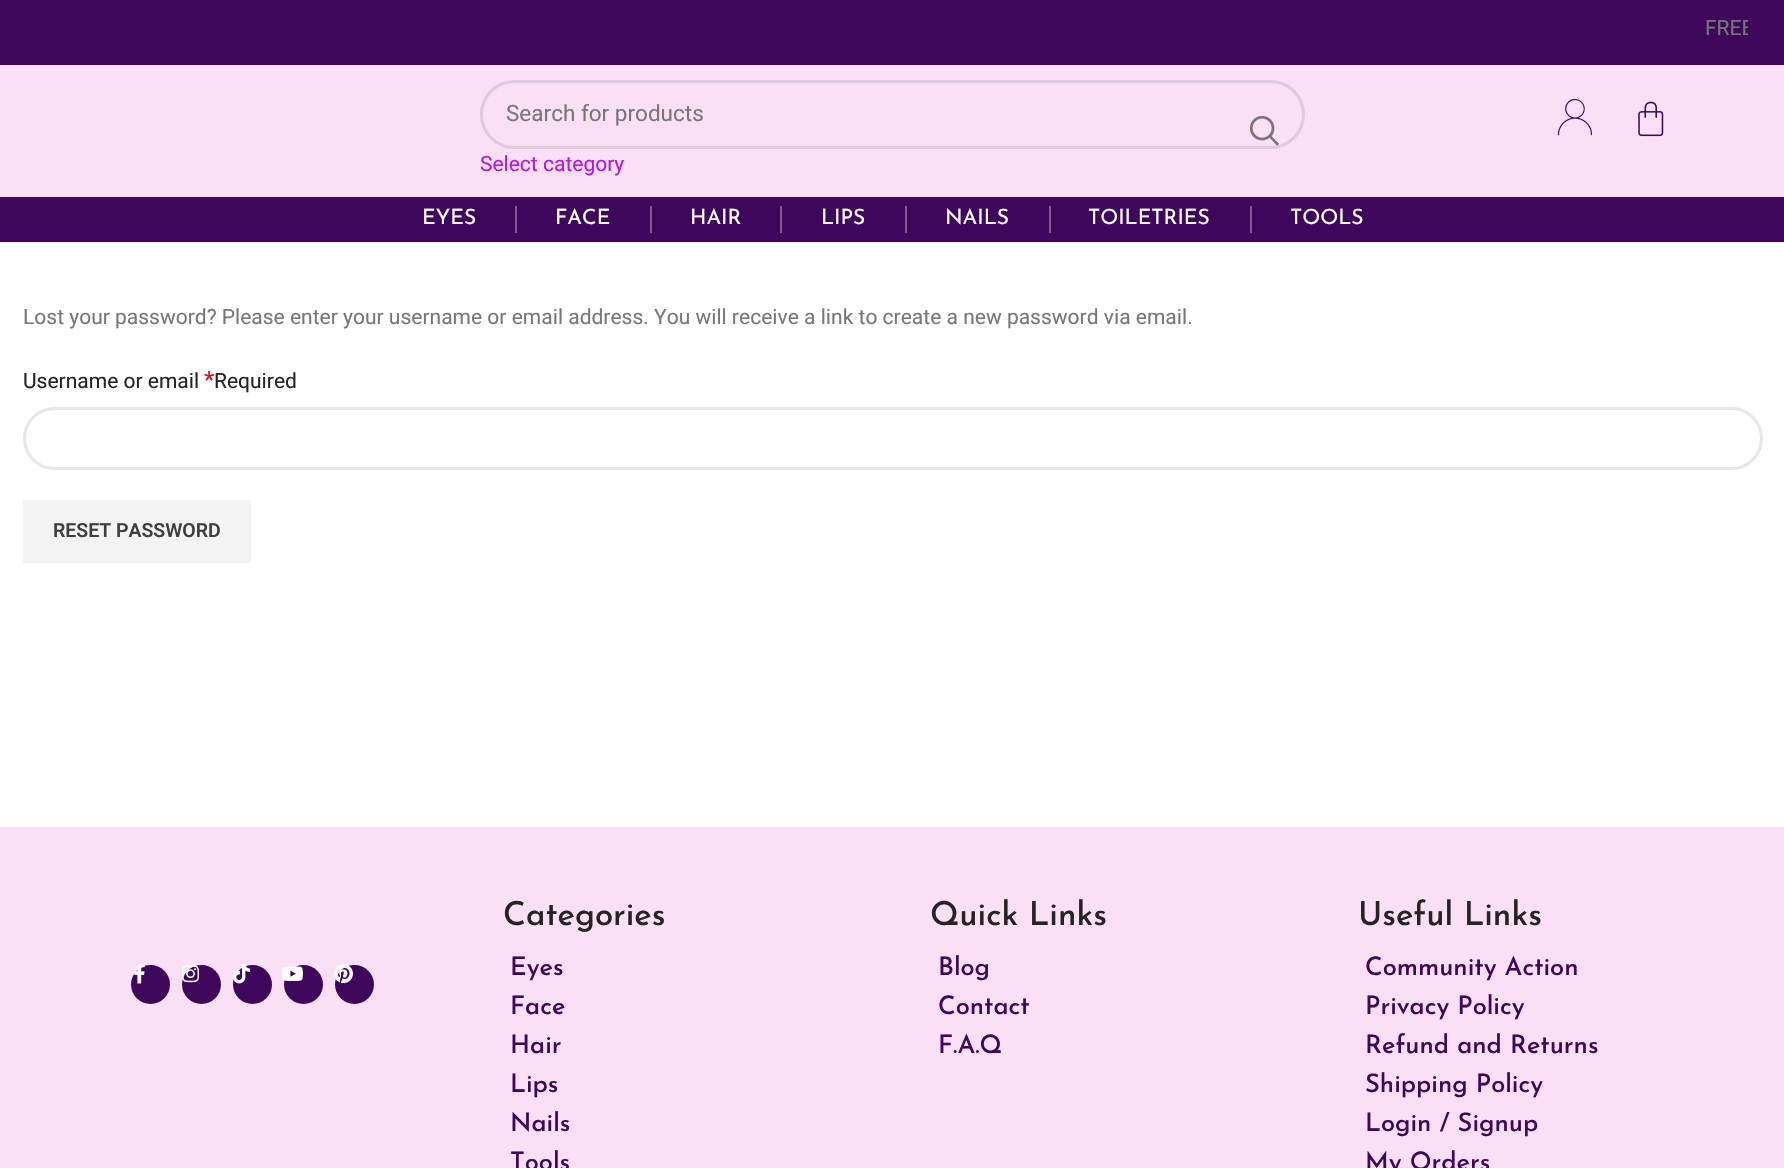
void draw(SkCanvas* canvas) {
	SkPaint paint;
	paint.setAntiAlias(true);
	canvas->clear(0xffffffff);
	paint.setColor(0xff3e075c);
	canvas->drawRect(SkRect::MakeXYWH(0, 0, 1784, 65), paint);
	canvas->save();
	canvas->clipRect(SkRect::MakeXYWH(38, 12, 1710, 33));
	SkFont f1(fontMgr->matchFamilyStyle("Heebo", SkFontStyle::Normal()), 21);
	f1.setSubpixel(true);
	paint.setColor(0xff777777);
	canvas->drawString("FREE", 1705, 35, f1, paint);
	canvas->restore();
	paint.setColor(0xfffadff5);
	canvas->drawRect(SkRect::MakeXYWH(0, 65, 1784, 132), paint);
	paint.setStroke(true);
	paint.setStrokeWidth(3);
	paint.setColor(0xffe1c9dd);
	canvas->drawRoundRect(SkRect::MakeXYWH(481.5, 81.5, 822, 66), 33, 33, paint);
	SkFont f2(fontMgr->matchFamilyStyle("Heebo", SkFontStyle::Normal()), 22.5);
	f2.setSubpixel(true);
	paint.setStroke(false);
	paint.setColor(0xff777777);
	canvas->drawString("Search for products", 506, 121, f2, paint);
	canvas->drawImageRect(SkImages::DeferredFromEncodedData(SkData::MakeFromFileName("img1.png")), SkRect::MakeXYWH(1249, 115, 30, 31), SkSamplingOptions());
	paint.setColor(0xffb519d7);
	canvas->drawString("Select category", 480, 171, f1, paint);
	canvas->drawImageRect(SkImages::DeferredFromEncodedData(SkData::MakeFromFileName("img2.png")), SkRect::MakeXYWH(1557, 98, 36, 38), SkSamplingOptions());
	canvas->drawImageRect(SkImages::DeferredFromEncodedData(SkData::MakeFromFileName("img3.png")), SkRect::MakeXYWH(1638, 101, 26, 36), SkSamplingOptions());
	paint.setColor(0xff3e075c);
	canvas->drawRect(SkRect::MakeXYWH(0, 197, 1784, 45), paint);
	SkFont f3(fontMgr->matchFamilyStyle("Josefin Sans", SkFontStyle::Normal()), 21);
	f3.setSubpixel(true);
	paint.setColor(0xffffffff);
	canvas->drawString("EYES", 422, 224, f3, paint);
	paint.setColor(0xff855996);
	canvas->drawRect(SkRect::MakeXYWH(515, 206, 2, 27), paint);
	paint.setColor(0xffffffff);
	canvas->drawString("FACE", 555, 224, f3, paint);
	paint.setColor(0xff855996);
	canvas->drawRect(SkRect::MakeXYWH(650, 206, 2, 27), paint);
	paint.setColor(0xffffffff);
	canvas->drawString("HAIR", 690, 224, f3, paint);
	paint.setColor(0xff855996);
	canvas->drawRect(SkRect::MakeXYWH(780, 206, 2, 27), paint);
	paint.setColor(0xffffffff);
	canvas->drawString("LIPS", 821, 224, f3, paint);
	paint.setColor(0xff855996);
	canvas->drawRect(SkRect::MakeXYWH(905, 206, 2, 27), paint);
	paint.setColor(0xffffffff);
	canvas->drawString("NAILS", 945, 224, f3, paint);
	paint.setColor(0xff855996);
	canvas->drawRect(SkRect::MakeXYWH(1049, 206, 2, 27), paint);
	paint.setColor(0xffffffff);
	canvas->drawString("TOILETRIES", 1088, 224, f3, paint);
	paint.setColor(0xff855996);
	canvas->drawRect(SkRect::MakeXYWH(1250, 206, 2, 27), paint);
	paint.setColor(0xffffffff);
	canvas->drawString("TOOLS", 1290, 224, f3, paint);
	paint.setColor(0xff777777);
	canvas->drawString("Lost your password? Please enter your username or email address. You will receive a link to create a new password via email.", 23, 324, f1, paint);
	paint.setColor(0xff242424);
	canvas->drawString("Username or email", 23, 388, f1, paint);
	SkFont f4(fontMgr->matchFamilyStyle("Heebo", SkFontStyle::Normal()), 24);
	f4.setSubpixel(true);
	paint.setColor(0xffe01020);
	canvas->drawString("*", 204, 388, f4, paint);
	paint.setColor(0xff242424);
	canvas->drawString("Required", 214, 388, f1, paint);
	paint.setStroke(true);
	paint.setColor(0xffe6e6e6);
	canvas->drawRoundRect(SkRect::MakeXYWH(24.5, 408.5, 1737, 60), 30, 30, paint);
	paint.setStroke(false);
	paint.setColor(0xfff3f3f3);
	canvas->drawRect(SkRect::MakeXYWH(23, 500, 228, 63), paint);
	SkFont f5(fontMgr->matchFamilyStyle("Heebo", SkFontStyle(600, SkFontStyle::kNormal_Width, SkFontStyle::kUpright_Slant)), 19.5);
	f5.setSubpixel(true);
	paint.setColor(0xff3e3e3e);
	canvas->drawString("RESET PASSWORD", 53, 537, f5, paint);
	paint.setColor(0xfffadff5);
	canvas->drawRect(SkRect::MakeXYWH(0, 827, 1784, 341), paint);
	paint.setColor(0xff3e075c);
	canvas->drawCircle(150.5, 984.5, 19.5, paint);
	canvas->drawImageRect(SkImages::DeferredFromEncodedData(SkData::MakeFromFileName("img4.png")), SkRect::MakeXYWH(134, 964, 11, 20), SkSamplingOptions());
	canvas->drawCircle(201.5, 984.5, 19.5, paint);
	canvas->drawImageRect(SkImages::DeferredFromEncodedData(SkData::MakeFromFileName("img5.png")), SkRect::MakeXYWH(182, 965, 18, 18), SkSamplingOptions());
	canvas->drawCircle(252.5, 984.5, 19.5, paint);
	canvas->drawImageRect(SkImages::DeferredFromEncodedData(SkData::MakeFromFileName("img6.png")), SkRect::MakeXYWH(233, 964, 18, 20), SkSamplingOptions());
	canvas->drawCircle(303.5, 984.5, 19.5, paint);
	canvas->drawImageRect(SkImages::DeferredFromEncodedData(SkData::MakeFromFileName("img7.png")), SkRect::MakeXYWH(282, 966, 21, 15), SkSamplingOptions());
	canvas->drawCircle(354.5, 984.5, 19.5, paint);
	canvas->drawImageRect(SkImages::DeferredFromEncodedData(SkData::MakeFromFileName("img8.png")), SkRect::MakeXYWH(334, 964, 19, 20), SkSamplingOptions());
	SkFont f6(fontMgr->matchFamilyStyle("Josefin Sans", SkFontStyle(500, SkFontStyle::kNormal_Width, SkFontStyle::kUpright_Slant)), 33);
	f6.setSubpixel(true);
	paint.setColor(0xff242424);
	canvas->drawString("Categories", 503, 925, f6, paint);
	SkFont f7(fontMgr->matchFamilyStyle("Josefin Sans", SkFontStyle(500, SkFontStyle::kNormal_Width, SkFontStyle::kUpright_Slant)), 25.5);
	f7.setSubpixel(true);
	paint.setColor(0xff3e075c);
	canvas->drawString("Eyes", 510, 975, f7, paint);
	canvas->drawString("Face", 510, 1014, f7, paint);
	canvas->drawString("Hair", 510, 1053, f7, paint);
	canvas->drawString("Lips", 510, 1092, f7, paint);
	canvas->drawString("Nails", 510, 1131, f7, paint);
	canvas->drawString("Tools", 510, 1170, f7, paint);
	paint.setColor(0xff242424);
	canvas->drawString("Quick Links", 930, 925, f6, paint);
	paint.setColor(0xff3e075c);
	canvas->drawString("Blog", 938, 975, f7, paint);
	canvas->drawString("Contact", 938, 1014, f7, paint);
	canvas->drawString("F.A.Q", 938, 1053, f7, paint);
	paint.setColor(0xff242424);
	canvas->drawString("Useful Links", 1358, 925, f6, paint);
	paint.setColor(0xff3e075c);
	canvas->drawString("Community Action", 1365, 975, f7, paint);
	canvas->drawString("Privacy Policy", 1365, 1014, f7, paint);
	canvas->drawString("Refund and Returns", 1365, 1053, f7, paint);
	canvas->drawString("Shipping Policy", 1365, 1092, f7, paint);
	canvas->drawString("Login / Signup", 1365, 1131, f7, paint);
	canvas->drawString("My Orders", 1365, 1170, f7, paint);
}
